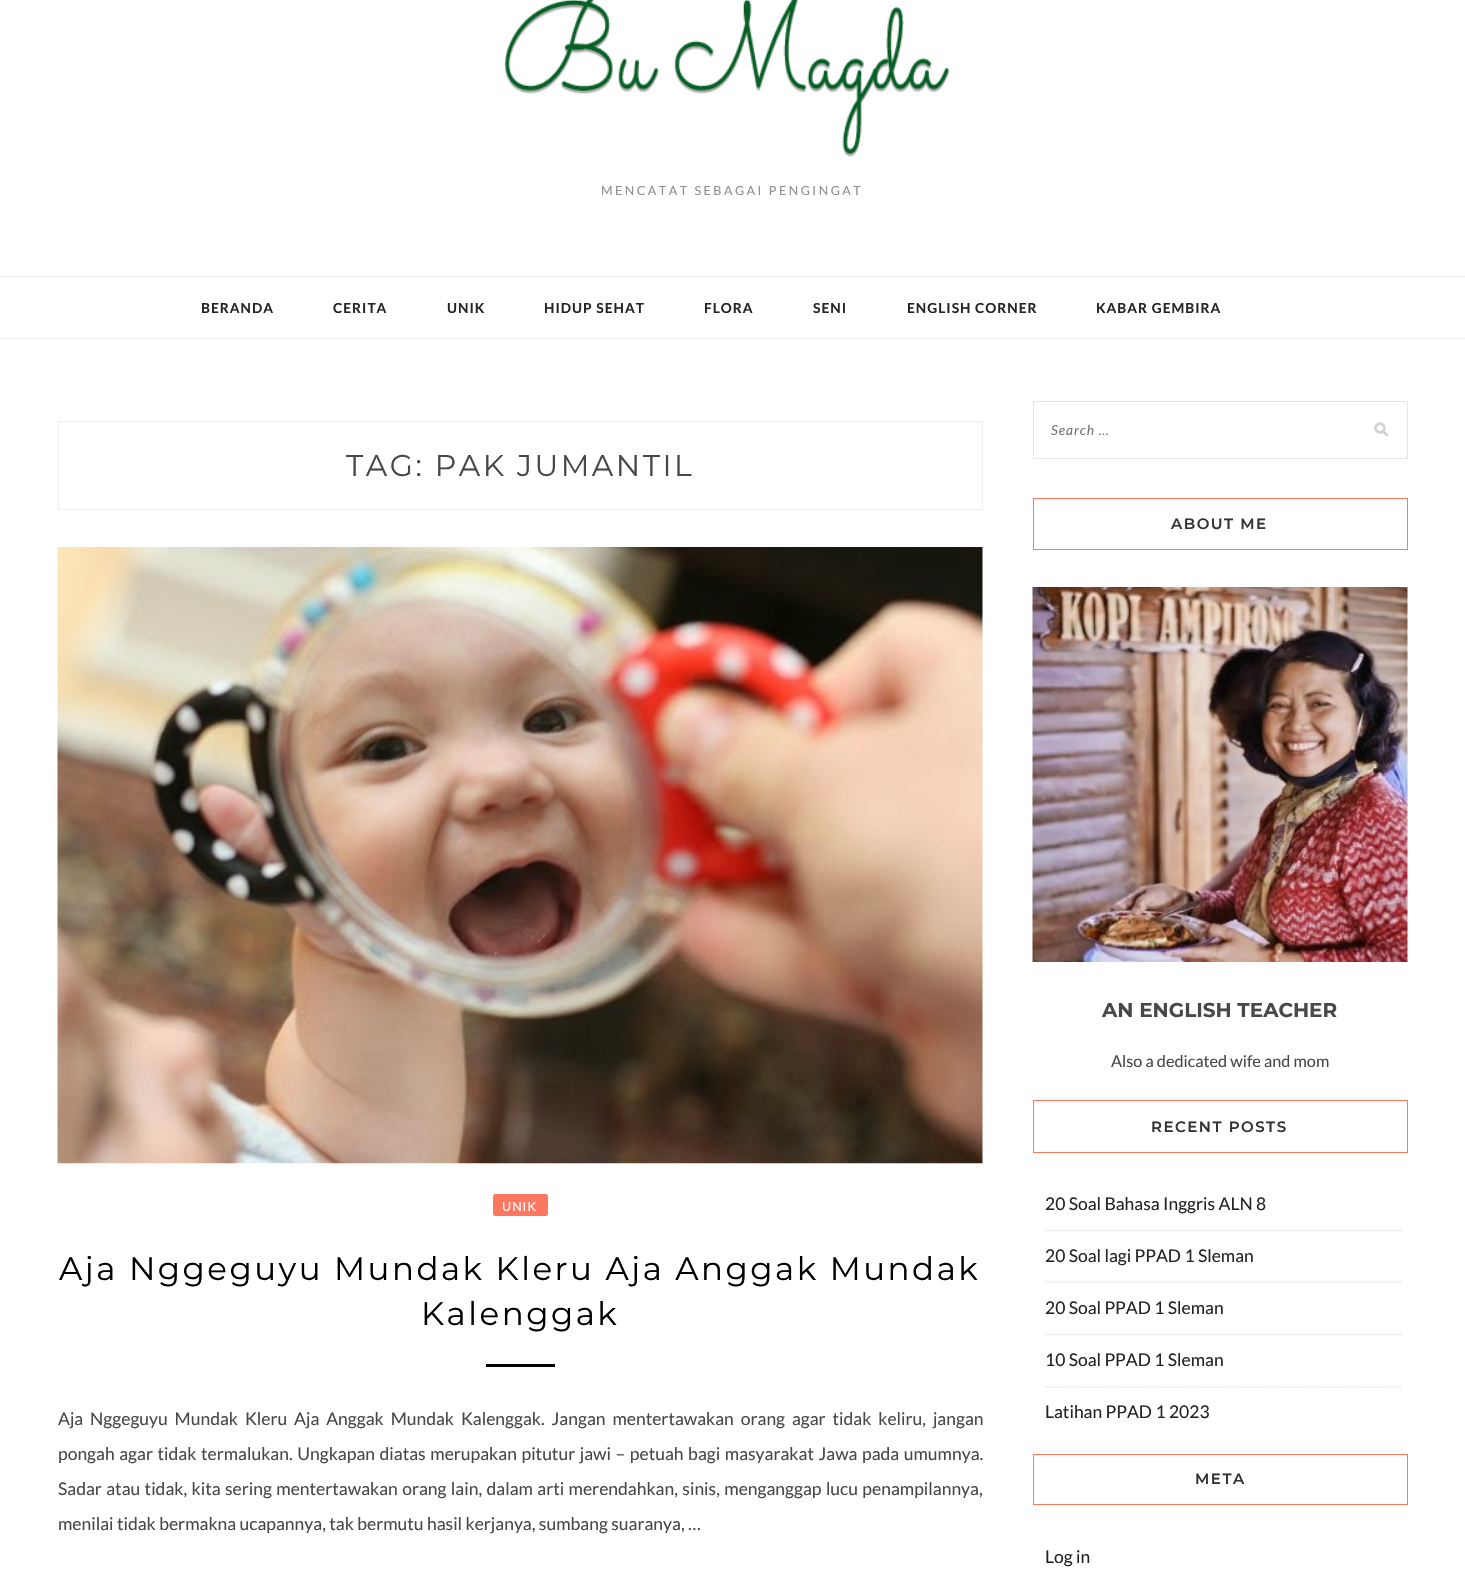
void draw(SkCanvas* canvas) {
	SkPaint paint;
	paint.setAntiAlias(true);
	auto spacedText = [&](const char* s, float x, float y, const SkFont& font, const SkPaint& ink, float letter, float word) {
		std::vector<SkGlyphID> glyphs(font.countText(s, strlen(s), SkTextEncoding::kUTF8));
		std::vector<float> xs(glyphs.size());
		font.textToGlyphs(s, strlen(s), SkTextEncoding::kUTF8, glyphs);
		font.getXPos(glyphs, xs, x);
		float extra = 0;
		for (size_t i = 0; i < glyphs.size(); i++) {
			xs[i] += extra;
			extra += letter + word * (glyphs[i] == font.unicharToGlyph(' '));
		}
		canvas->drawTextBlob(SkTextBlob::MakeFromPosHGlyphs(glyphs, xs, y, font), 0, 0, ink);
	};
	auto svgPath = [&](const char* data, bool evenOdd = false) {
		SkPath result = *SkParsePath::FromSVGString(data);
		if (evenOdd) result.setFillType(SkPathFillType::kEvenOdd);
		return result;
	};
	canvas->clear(0xffffffff);
	canvas->drawImageRect(SkImages::DeferredFromEncodedData(SkData::MakeFromFileName("img1.png")), SkRect::MakeXYWH(504, 0, 445, 157), SkSamplingOptions());
	SkFont f1(fontMgr->matchFamilyStyle("Lato", SkFontStyle::Normal()), 12.5);
	f1.setSubpixel(true);
	paint.setColor(0xff8e8e8e);
	spacedText("MENCATAT SEBAGAI PENGINGAT", 601, 195, f1, paint, 2.5, 0);
	paint.setColor(0xffeeeeee);
	canvas->drawRect(SkRect::MakeXYWH(0, 276, 1465, 1), paint);
	canvas->drawRect(SkRect::MakeXYWH(0, 338, 1465, 1), paint);
	SkFont f2(fontMgr->matchFamilyStyle("Lato", SkFontStyle::Bold()), 13.75);
	f2.setSubpixel(true);
	paint.setColor(0xff242424);
	spacedText("BERANDA", 201, 313, f2, paint, 1, 0);
	spacedText("CERITA", 333, 313, f2, paint, 1, 0);
	spacedText("UNIK", 447, 313, f2, paint, 1, 0);
	spacedText("HIDUP SEHAT", 544, 313, f2, paint, 1, 0);
	spacedText("FLORA", 704, 313, f2, paint, 1, 0);
	spacedText("SENI", 813, 313, f2, paint, 1, 0);
	spacedText("ENGLISH CORNER", 907, 313, f2, paint, 1, 0);
	spacedText("KABAR GEMBIRA", 1096, 313, f2, paint, 1, 0);
	paint.setStroke(true);
	paint.setStrokeWidth(1);
	paint.setColor(0xffededed);
	canvas->drawRect(SkRect::MakeXYWH(58.5, 421.5, 924, 88), paint);
	SkFont f3(fontMgr->matchFamilyStyle("Montserrat", SkFontStyle::Normal()), 30);
	f3.setSubpixel(true);
	paint.setStroke(false);
	paint.setColor(0xff484848);
	spacedText("TAG: PAK JUMANTIL", 346, 476, f3, paint, 2.5, 0);
	canvas->drawImageRect(SkImages::DeferredFromEncodedData(SkData::MakeFromFileName("img2.png")), SkRect::MakeXYWH(57, 547, 926, 617), SkSamplingOptions());
	paint.setColor(0xffff775f);
	canvas->drawRoundRect(SkRect::MakeXYWH(493, 1194, 55, 22), 2.5, 2.5, paint);
	paint.setColor(0xffffffff);
	spacedText("UNIK", 502, 1211, f1, paint, 1, 0);
	SkFont f4(fontMgr->matchFamilyStyle("Montserrat", SkFontStyle::Normal()), 32.5);
	f4.setSubpixel(true);
	paint.setColor(0xff000000);
	spacedText("Aja Nggeguyu Mundak Kleru Aja Anggak Mundak", 59, 1280, f4, paint, 2.5, 0);
	spacedText("Kalenggak", 421, 1325, f4, paint, 2.5, 0);
	canvas->drawRect(SkRect::MakeXYWH(486, 1364, 69, 3), paint);
	SkFont f5(fontMgr->matchFamilyStyle("Lato", SkFontStyle::Normal()), 17.5);
	f5.setSubpixel(true);
	paint.setColor(0xff484848);
	spacedText("Aja Nggeguyu Mundak Kleru Aja Anggak Mundak Kalenggak. Jangan mentertawakan orang agar tidak keliru, jangan", 58, 1425, f5, paint, 0, 3.5);
	spacedText("pongah agar tidak termalukan. Ungkapan diatas merupakan pitutur jawi – petuah bagi masyarakat Jawa pada umumnya.", 58, 1460, f5, paint, 0, 1.2);
	spacedText("Sadar atau tidak, kita sering mentertawakan orang lain, dalam arti merendahkan, sinis, menganggap lucu penampilannya,", 58, 1495, f5, paint, 0, 1);
	canvas->drawString("menilai tidak bermakna ucapannya, tak bermutu hasil kerjanya, sumbang suaranya, …", 58, 1530, f5, paint);
	canvas->drawImageRect(SkImages::DeferredFromEncodedData(SkData::MakeFromFileName("img3.png")), SkRect::MakeXYWH(1373, 422, 16, 15), SkSamplingOptions());
	paint.setStroke(true);
	paint.setColor(0xffe5e5e5);
	canvas->drawRect(SkRect::MakeXYWH(1033.5, 401.5, 374, 57), paint);
	SkFont f6(fontMgr->matchFamilyStyle("Lato", SkFontStyle::Italic()), 13.75);
	f6.setSubpixel(true);
	paint.setStroke(false);
	paint.setColor(0xff757575);
	spacedText("Search …", 1051, 435, f6, paint, 1, 0);
	paint.setStroke(true);
	paint.setColor(0xffff775f);
	canvas->drawRect(SkRect::MakeXYWH(1033.5, 498.5, 374, 51), paint);
	SkFont f7(fontMgr->matchFamilyStyle("Montserrat", SkFontStyle(600, SkFontStyle::kNormal_Width, SkFontStyle::kUpright_Slant)), 15);
	f7.setSubpixel(true);
	paint.setStroke(false);
	paint.setColor(0xff333333);
	spacedText("ABOUT ME", 1171, 529, f7, paint, 1.5, 0);
	canvas->drawImageRect(SkImages::DeferredFromEncodedData(SkData::MakeFromFileName("img4.png")), SkRect::MakeXYWH(1032, 587, 376, 375), SkSamplingOptions());
	SkFont f8(fontMgr->matchFamilyStyle("Montserrat", SkFontStyle::Bold()), 20);
	f8.setSubpixel(true);
	paint.setColor(0xff484848);
	canvas->drawString("AN ENGLISH TEACHER", 1102, 1017, f8, paint);
	SkFont f9(fontMgr->matchFamilyStyle("Lato", SkFontStyle::Normal()), 16.25);
	f9.setSubpixel(true);
	canvas->drawString("Also a dedicated wife and mom", 1111, 1067, f9, paint);
	paint.setStroke(true);
	paint.setColor(0xffff775f);
	canvas->drawRect(SkRect::MakeXYWH(1033.5, 1100.5, 374, 52), paint);
	paint.setStroke(false);
	paint.setColor(0xff333333);
	spacedText("RECENT POSTS", 1151, 1132, f7, paint, 1.5, 0);
	paint.setStroke(true);
	paint.setStrokeWidth(1.2);
	paint.setColor(0xffd5d5d5);
	paint.setPathEffect(SkDashPathEffect::Make({{1.25f, 1.25f}}, 0));
	canvas->drawPath(svgPath("M1045 1230.5H1401"), paint);
	paint.setPathEffect(nullptr);
	paint.setStroke(false);
	paint.setColor(0xff242424);
	canvas->drawString("20 Soal Bahasa Inggris ALN 8", 1045, 1210, f5, paint);
	paint.setStroke(true);
	paint.setColor(0xffd5d5d5);
	paint.setPathEffect(SkDashPathEffect::Make({{1.25f, 1.25f}}, 0));
	canvas->drawPath(svgPath("M1045 1282H1401"), paint);
	paint.setPathEffect(nullptr);
	paint.setStroke(false);
	paint.setColor(0xff242424);
	canvas->drawString("20 Soal lagi PPAD 1 Sleman", 1045, 1262, f5, paint);
	paint.setStroke(true);
	paint.setColor(0xffd5d5d5);
	paint.setPathEffect(SkDashPathEffect::Make({{1.25f, 1.25f}}, 0));
	canvas->drawPath(svgPath("M1045 1334.5H1401"), paint);
	paint.setPathEffect(nullptr);
	paint.setStroke(false);
	paint.setColor(0xff242424);
	canvas->drawString("20 Soal PPAD 1 Sleman", 1045, 1314, f5, paint);
	paint.setStroke(true);
	paint.setColor(0xffd5d5d5);
	paint.setPathEffect(SkDashPathEffect::Make({{1.25f, 1.25f}}, 0));
	canvas->drawPath(svgPath("M1045 1387H1401"), paint);
	paint.setPathEffect(nullptr);
	paint.setStroke(false);
	paint.setColor(0xff242424);
	canvas->drawString("10 Soal PPAD 1 Sleman", 1045, 1366, f5, paint);
	canvas->drawString("Latihan PPAD 1 2023", 1045, 1418, f5, paint);
	paint.setStroke(true);
	paint.setStrokeWidth(1);
	paint.setColor(0xffff775f);
	canvas->drawRect(SkRect::MakeXYWH(1033.5, 1454.5, 374, 50), paint);
	paint.setStroke(false);
	paint.setColor(0xff333333);
	spacedText("META", 1195, 1484, f7, paint, 1.5, 0);
	paint.setColor(0xff242424);
	canvas->drawString("Log in", 1045, 1563, f5, paint);
}
